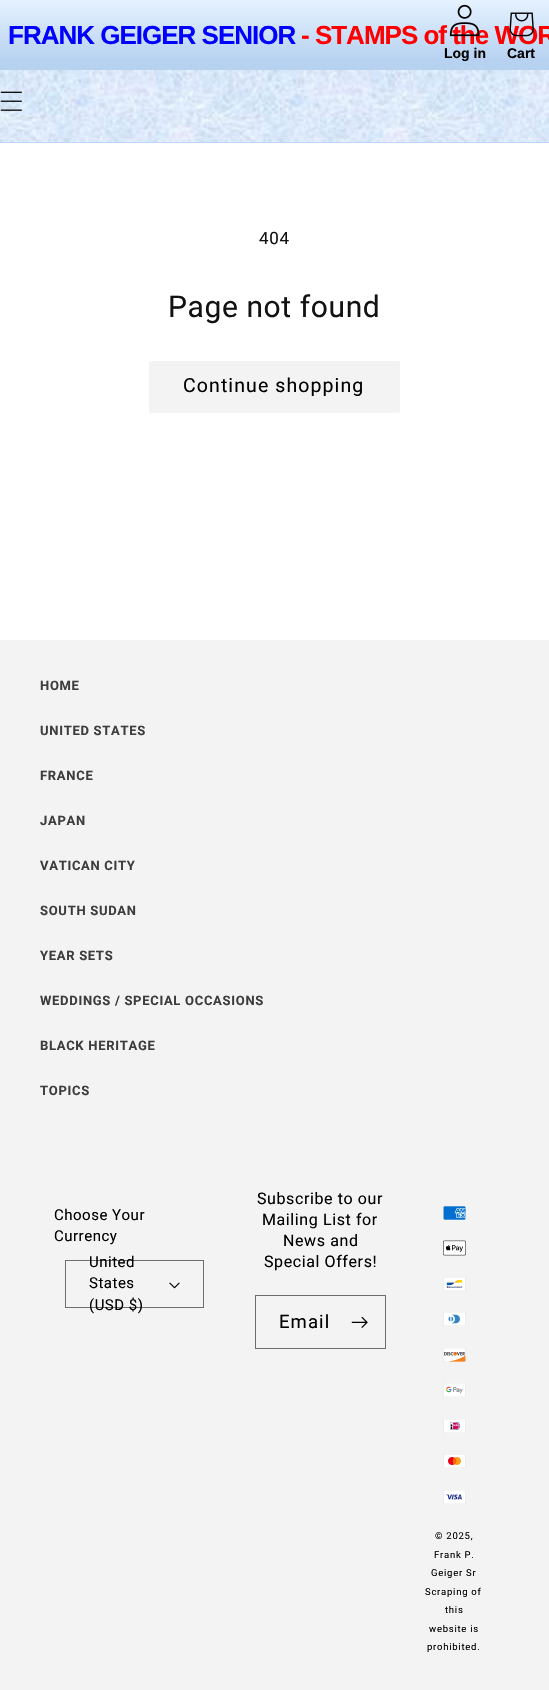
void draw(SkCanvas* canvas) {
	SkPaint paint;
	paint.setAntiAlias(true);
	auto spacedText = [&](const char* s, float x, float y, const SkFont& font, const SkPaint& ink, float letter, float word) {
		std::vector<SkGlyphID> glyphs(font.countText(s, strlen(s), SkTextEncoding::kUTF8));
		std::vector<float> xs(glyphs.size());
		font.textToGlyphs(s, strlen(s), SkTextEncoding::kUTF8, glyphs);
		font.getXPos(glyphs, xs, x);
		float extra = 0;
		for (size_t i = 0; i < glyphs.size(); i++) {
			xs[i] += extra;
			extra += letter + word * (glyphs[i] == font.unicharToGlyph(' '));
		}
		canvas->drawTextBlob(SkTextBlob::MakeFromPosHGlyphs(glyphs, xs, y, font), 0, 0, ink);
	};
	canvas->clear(0xffffffff);
	{
		const SkColor colors[] = {0xffb7d2f1, 0xffe6f2ff};
		const float stops[] = {0.15, 1};
		const SkPoint ends[] = {{275, 70}, {275, 0}};
		paint.setShader(SkGradientShader::MakeLinear(ends, colors, stops, 2, SkTileMode::kClamp));
		paint.setAlpha(255);
	}
	canvas->drawRect(SkRect::MakeXYWH(0, 0, 549, 70), paint);
	SkFont f1(fontMgr->matchFamilyStyle("Liberation Sans", SkFontStyle::Bold()), 26);
	f1.setSubpixel(true);
	paint.setShader(nullptr);
	paint.setColor(0xff0000ff);
	spacedText("FRANK GEIGER SENIOR", 8, 44, f1, paint, -1, 0);
	paint.setColor(0xffff0000);
	spacedText("- STAMPS of the WOR", 301, 44, f1, paint, -1, 0);
	canvas->drawImageRect(SkImages::DeferredFromEncodedData(SkData::MakeFromFileName("img1.png")), SkRect::MakeXYWH(449, 4, 31, 33), SkSamplingOptions());
	canvas->drawImageRect(SkImages::DeferredFromEncodedData(SkData::MakeFromFileName("img2.png")), SkRect::MakeXYWH(509, 12, 25, 25), SkSamplingOptions());
	SkFont f2(fontMgr->matchFamilyStyle("Liberation Sans", SkFontStyle::Bold()), 14);
	f2.setSubpixel(true);
	paint.setColor(0xff000000);
	canvas->drawString("Log in", 444, 58, f2, paint);
	canvas->drawString("Cart", 507, 58, f2, paint);
	canvas->drawImageRect(SkImages::DeferredFromEncodedData(SkData::MakeFromFileName("img3.png")), SkRect::MakeXYWH(0, 70, 549, 72), SkSamplingOptions());
	paint.setColor(0xffbcd8ff);
	canvas->drawRect(SkRect::MakeXYWH(0, 142, 549, 1), paint);
	canvas->drawImageRect(SkImages::DeferredFromEncodedData(SkData::MakeFromFileName("img4.png")), SkRect::MakeXYWH(0, 91, 22, 20), SkSamplingOptions());
	SkFont f3(fontMgr->matchFamilyStyle("Roboto", SkFontStyle::Normal()), 17);
	f3.setSubpixel(true);
	paint.setColor(0xff121212);
	spacedText("404", 259, 244, f3, paint, 0.7, 0);
	SkFont f4(fontMgr->matchFamilyStyle("Roboto", SkFontStyle::Normal()), 30);
	f4.setSubpixel(true);
	spacedText("Page not found", 168, 317, f4, paint, 0.6, 0);
	paint.setColor(0xfff3f3f3);
	canvas->drawRoundRect(SkRect::MakeXYWH(149, 361, 251, 52), 2, 2, paint);
	SkFont f5(fontMgr->matchFamilyStyle("Roboto", SkFontStyle::Normal()), 19.5);
	f5.setSubpixel(true);
	paint.setColor(0xff000000);
	spacedText("Continue shopping", 183, 392, f5, paint, 1.1, 0);
	paint.setColor(0xfff3f3f3);
	canvas->drawRect(SkRect::MakeXYWH(0, 640, 549, 1050), paint);
	SkFont f6(fontMgr->matchFamilyStyle("Roboto", SkFontStyle::Bold()), 13);
	f6.setSubpixel(true);
	paint.setColor(0xff3d3d3d);
	spacedText("HOME", 40, 690, f6, paint, 0.7, 0);
	spacedText("UNITED STATES", 40, 735, f6, paint, 0.7, 0);
	spacedText("FRANCE", 40, 780, f6, paint, 0.7, 0);
	spacedText("JAPAN", 40, 825, f6, paint, 0.7, 0);
	spacedText("VATICAN CITY", 40, 870, f6, paint, 0.7, 0);
	spacedText("SOUTH SUDAN", 40, 915, f6, paint, 0.7, 0);
	spacedText("YEAR SETS", 40, 960, f6, paint, 0.7, 0);
	spacedText("WEDDINGS / SPECIAL OCCASIONS", 40, 1005, f6, paint, 0.7, 0);
	spacedText("BLACK HERITAGE", 40, 1050, f6, paint, 0.7, 0);
	spacedText("TOPICS", 40, 1095, f6, paint, 0.7, 0);
	SkFont f7(fontMgr->matchFamilyStyle("Roboto", SkFontStyle::Normal()), 15);
	f7.setSubpixel(true);
	paint.setColor(0xff000000);
	spacedText("Choose Your", 54, 1220, f7, paint, 0.5, 0);
	spacedText("Currency", 54, 1241, f7, paint, 0.5, 0);
	spacedText("United", 89, 1267, f7, paint, 0.5, 0);
	canvas->drawImageRect(SkImages::DeferredFromEncodedData(SkData::MakeFromFileName("img5.png")), SkRect::MakeXYWH(169, 1282, 11, 7), SkSamplingOptions());
	spacedText("(USD $)", 89, 1310, f7, paint, 0.5, 0);
	paint.setStroke(true);
	paint.setStrokeWidth(1);
	paint.setColor(0x8c000000);
	canvas->drawRect(SkRect::MakeXYWH(65.5, 1260.5, 138, 47), paint);
	paint.setStroke(false);
	paint.setColor(0xff000000);
	spacedText("States", 89, 1288, f7, paint, 0.5, 0);
	SkFont f8(fontMgr->matchFamilyStyle("Roboto", SkFontStyle::Normal()), 16);
	f8.setSubpixel(true);
	spacedText("Subscribe to our", 257, 1204, f8, paint, 0.6, 0);
	spacedText("Mailing List for", 262, 1225, f8, paint, 0.6, 0);
	spacedText("News and", 283, 1246, f8, paint, 0.6, 0);
	spacedText("Special Offers!", 264, 1267, f8, paint, 0.6, 0);
	paint.setStroke(true);
	paint.setColor(0xff6d6d6d);
	canvas->drawRect(SkRect::MakeXYWH(255.5, 1295.5, 130, 53), paint);
	SkFont f9(fontMgr->matchFamilyStyle("Roboto", SkFontStyle::Normal()), 18.5);
	f9.setSubpixel(true);
	paint.setStroke(false);
	paint.setColor(0xff000000);
	spacedText("Email", 279, 1328, f9, paint, 1.1, 0);
	canvas->drawImageRect(SkImages::DeferredFromEncodedData(SkData::MakeFromFileName("img6.png")), SkRect::MakeXYWH(351, 1316, 17, 12), SkSamplingOptions());
	canvas->drawImageRect(SkImages::DeferredFromEncodedData(SkData::MakeFromFileName("img7.png")), SkRect::MakeXYWH(443, 1206, 23, 14), SkSamplingOptions());
	canvas->drawImageRect(SkImages::DeferredFromEncodedData(SkData::MakeFromFileName("img8.png")), SkRect::MakeXYWH(443, 1240, 23, 16), SkSamplingOptions());
	canvas->drawImageRect(SkImages::DeferredFromEncodedData(SkData::MakeFromFileName("img9.png")), SkRect::MakeXYWH(443, 1277, 23, 14), SkSamplingOptions());
	canvas->drawImageRect(SkImages::DeferredFromEncodedData(SkData::MakeFromFileName("img10.png")), SkRect::MakeXYWH(443, 1312, 23, 14), SkSamplingOptions());
	canvas->drawImageRect(SkImages::DeferredFromEncodedData(SkData::MakeFromFileName("img11.png")), SkRect::MakeXYWH(443, 1348, 23, 14), SkSamplingOptions());
	canvas->drawImageRect(SkImages::DeferredFromEncodedData(SkData::MakeFromFileName("img12.png")), SkRect::MakeXYWH(443, 1383, 23, 14), SkSamplingOptions());
	canvas->drawImageRect(SkImages::DeferredFromEncodedData(SkData::MakeFromFileName("img13.png")), SkRect::MakeXYWH(443, 1419, 23, 14), SkSamplingOptions());
	canvas->drawImageRect(SkImages::DeferredFromEncodedData(SkData::MakeFromFileName("img14.png")), SkRect::MakeXYWH(443, 1454, 23, 14), SkSamplingOptions());
	canvas->drawImageRect(SkImages::DeferredFromEncodedData(SkData::MakeFromFileName("img15.png")), SkRect::MakeXYWH(443, 1490, 23, 14), SkSamplingOptions());
	SkFont f10(fontMgr->matchFamilyStyle("Roboto", SkFontStyle::Normal()), 9.5);
	f10.setSubpixel(true);
	spacedText("© 2025,", 435, 1539, f10, paint, 0.75, 0);
	spacedText("Frank P.", 434, 1558, f10, paint, 0.75, 0);
	spacedText("Geiger Sr", 431, 1576, f10, paint, 0.75, 0);
	spacedText("Scraping of", 425, 1595, f10, paint, 0.75, 0);
	spacedText("this", 445, 1613, f10, paint, 0.75, 0);
	spacedText("website is", 429, 1632, f10, paint, 0.75, 0);
	spacedText("prohibited.", 427, 1650, f10, paint, 0.75, 0);
}
